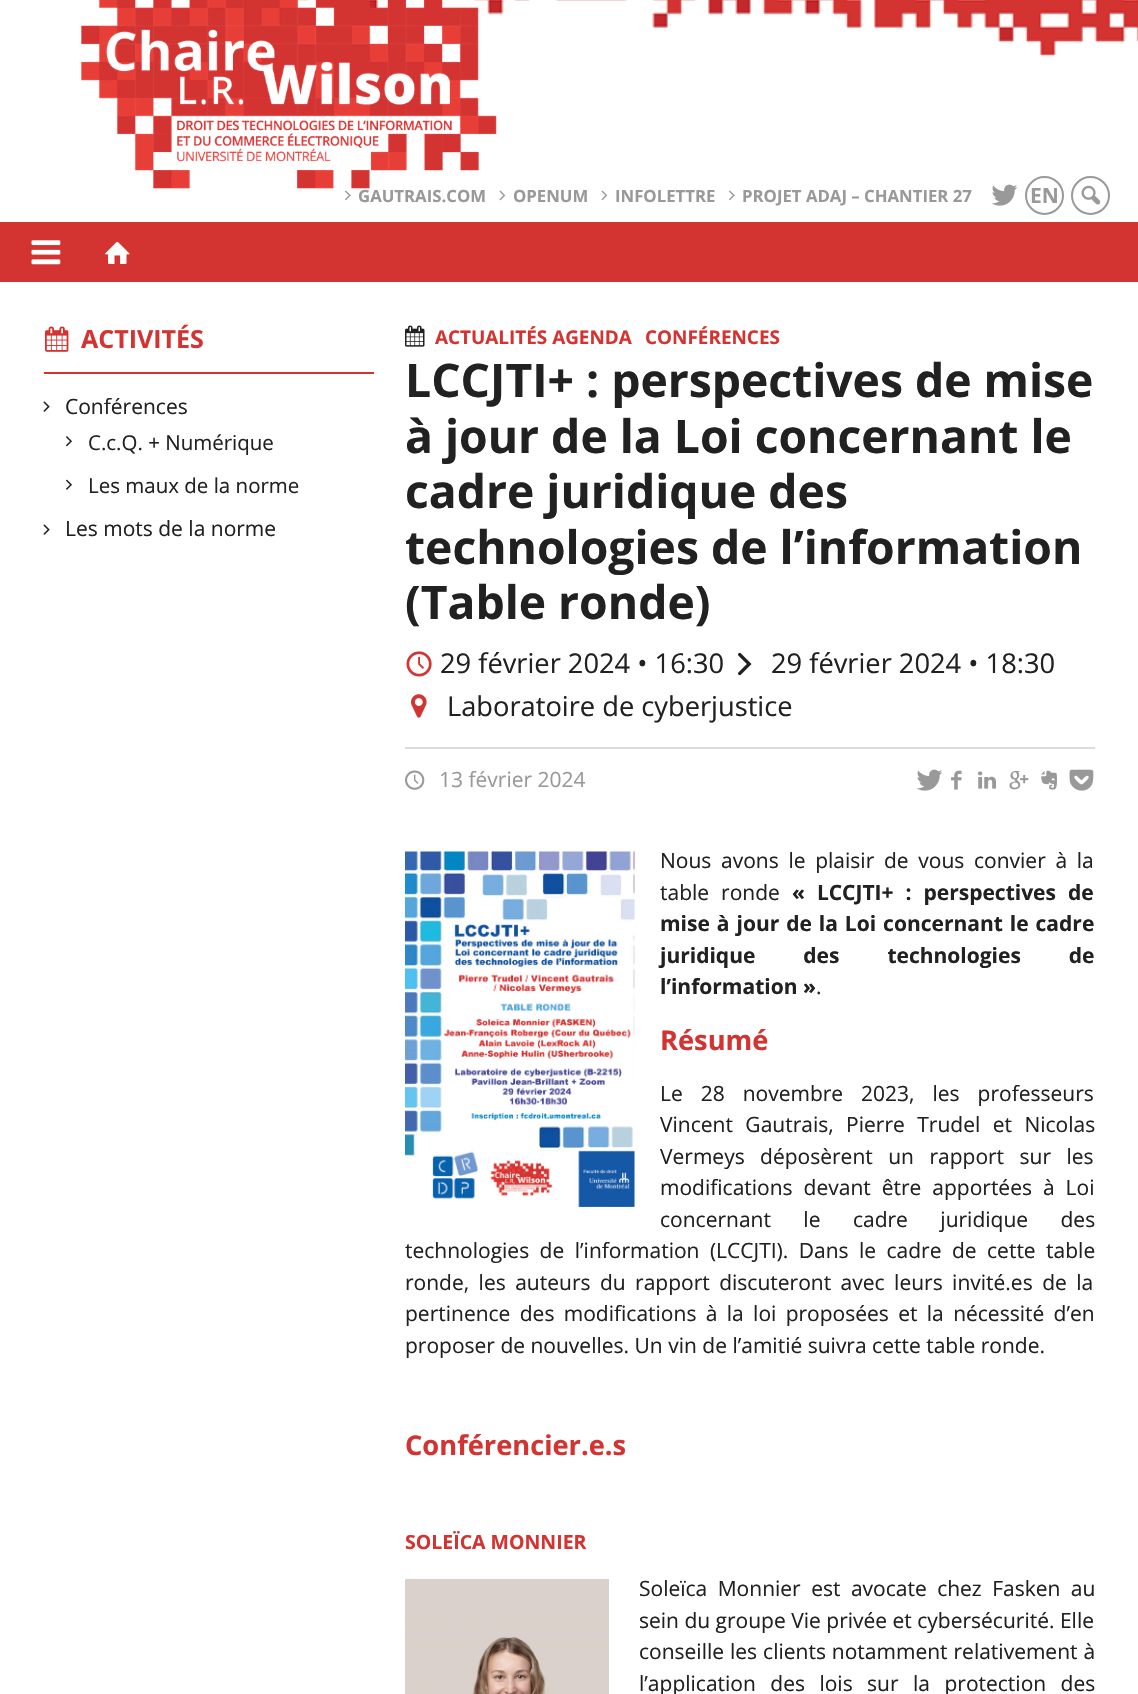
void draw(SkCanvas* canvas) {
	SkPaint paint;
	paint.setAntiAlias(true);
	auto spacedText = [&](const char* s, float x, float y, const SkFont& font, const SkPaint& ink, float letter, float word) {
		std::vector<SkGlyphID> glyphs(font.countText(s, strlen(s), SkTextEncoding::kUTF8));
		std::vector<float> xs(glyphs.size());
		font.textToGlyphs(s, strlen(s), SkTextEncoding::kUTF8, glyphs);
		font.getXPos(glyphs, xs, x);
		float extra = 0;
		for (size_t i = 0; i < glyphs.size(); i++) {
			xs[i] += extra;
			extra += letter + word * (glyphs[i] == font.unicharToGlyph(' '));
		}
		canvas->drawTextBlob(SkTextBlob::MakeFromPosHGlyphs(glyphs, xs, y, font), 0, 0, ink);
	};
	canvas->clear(0xffffffff);
	canvas->drawImageRect(SkImages::DeferredFromEncodedData(SkData::MakeFromFileName("img1.png")), SkRect::MakeXYWH(296, 0, 842, 57), SkSamplingOptions());
	canvas->drawImageRect(SkImages::DeferredFromEncodedData(SkData::MakeFromFileName("img2.png")), SkRect::MakeXYWH(81, 0, 416, 189), SkSamplingOptions());
	canvas->drawImageRect(SkImages::DeferredFromEncodedData(SkData::MakeFromFileName("img3.png")), SkRect::MakeXYWH(345, 190, 6, 11), SkSamplingOptions());
	SkFont f1(fontMgr->matchFamilyStyle("Open Sans", SkFontStyle::Bold()), 16.75);
	f1.setSubpixel(true);
	paint.setColor(0xff999999);
	canvas->drawString("GAUTRAIS.COM", 358, 202, f1, paint);
	canvas->drawImageRect(SkImages::DeferredFromEncodedData(SkData::MakeFromFileName("img4.png")), SkRect::MakeXYWH(499, 190, 7, 11), SkSamplingOptions());
	canvas->drawString("OPENUM", 513, 202, f1, paint);
	canvas->drawImageRect(SkImages::DeferredFromEncodedData(SkData::MakeFromFileName("img4.png")), SkRect::MakeXYWH(601, 190, 7, 11), SkSamplingOptions());
	canvas->drawString("INFOLETTRE", 615, 202, f1, paint);
	canvas->drawImageRect(SkImages::DeferredFromEncodedData(SkData::MakeFromFileName("img3.png")), SkRect::MakeXYWH(729, 190, 6, 11), SkSamplingOptions());
	canvas->drawString("PROJET ADAJ – CHANTIER 27", 742, 202, f1, paint);
	canvas->drawImageRect(SkImages::DeferredFromEncodedData(SkData::MakeFromFileName("img5.png")), SkRect::MakeXYWH(991, 184, 27, 22), SkSamplingOptions());
	paint.setStroke(true);
	paint.setStrokeWidth(2);
	canvas->drawCircle(1044.5, 195.5, 18.5, paint);
	SkFont f2(fontMgr->matchFamilyStyle("Open Sans", SkFontStyle::Bold()), 21);
	f2.setSubpixel(true);
	paint.setStroke(false);
	canvas->drawString("EN", 1030, 203, f2, paint);
	paint.setStroke(true);
	canvas->drawCircle(1090.5, 195.5, 18.5, paint);
	canvas->drawImageRect(SkImages::DeferredFromEncodedData(SkData::MakeFromFileName("img6.png")), SkRect::MakeXYWH(1081, 185, 20, 20), SkSamplingOptions());
	paint.setStroke(false);
	paint.setColor(0xffd33331);
	canvas->drawRect(SkRect::MakeXYWH(0, 222, 1138, 60), paint);
	canvas->drawImageRect(SkImages::DeferredFromEncodedData(SkData::MakeFromFileName("img7.png")), SkRect::MakeXYWH(31, 240, 30, 25), SkSamplingOptions());
	canvas->drawImageRect(SkImages::DeferredFromEncodedData(SkData::MakeFromFileName("img8.png")), SkRect::MakeXYWH(105, 241, 25, 23), SkSamplingOptions());
	canvas->drawRect(SkRect::MakeXYWH(44, 372, 330, 2), paint);
	canvas->drawImageRect(SkImages::DeferredFromEncodedData(SkData::MakeFromFileName("img9.png")), SkRect::MakeXYWH(45, 326, 24, 26), SkSamplingOptions());
	SkFont f3(fontMgr->matchFamilyStyle("Open Sans", SkFontStyle::Bold()), 25);
	f3.setSubpixel(true);
	canvas->drawString("ACTIVITÉS", 81, 348, f3, paint);
	canvas->drawImageRect(SkImages::DeferredFromEncodedData(SkData::MakeFromFileName("img10.png")), SkRect::MakeXYWH(43, 401, 7, 11), SkSamplingOptions());
	SkFont f4(fontMgr->matchFamilyStyle("Open Sans", SkFontStyle::Normal()), 21);
	f4.setSubpixel(true);
	paint.setColor(0xff212121);
	canvas->drawString("Conférences", 65, 414, f4, paint);
	canvas->drawImageRect(SkImages::DeferredFromEncodedData(SkData::MakeFromFileName("img11.png")), SkRect::MakeXYWH(66, 436, 6, 11), SkSamplingOptions());
	SkFont f5(fontMgr->matchFamilyStyle("Open Sans", SkFontStyle::Normal()), 20.5);
	f5.setSubpixel(true);
	canvas->drawString("C.c.Q. + Numérique", 88, 450, f5, paint);
	canvas->drawImageRect(SkImages::DeferredFromEncodedData(SkData::MakeFromFileName("img12.png")), SkRect::MakeXYWH(66, 479, 6, 11), SkSamplingOptions());
	canvas->drawString("Les maux de la norme", 88, 493, f5, paint);
	canvas->drawImageRect(SkImages::DeferredFromEncodedData(SkData::MakeFromFileName("img10.png")), SkRect::MakeXYWH(43, 524, 7, 11), SkSamplingOptions());
	canvas->drawString("Les mots de la norme", 65, 536, f4, paint);
	canvas->drawImageRect(SkImages::DeferredFromEncodedData(SkData::MakeFromFileName("img13.png")), SkRect::MakeXYWH(405, 325, 20, 22), SkSamplingOptions());
	SkFont f6(fontMgr->matchFamilyStyle("Open Sans", SkFontStyle::Bold()), 18.9);
	f6.setSubpixel(true);
	paint.setColor(0xffd33331);
	canvas->drawString("ACTUALITÉS AGENDA", 435, 344, f6, paint);
	canvas->drawString("CONFÉRENCES", 645, 344, f6, paint);
	SkFont f7(fontMgr->matchFamilyStyle("Open Sans", SkFontStyle::Bold()), 46.25);
	f7.setSubpixel(true);
	paint.setColor(0xff212121);
	canvas->drawString("LCCJTI+ : perspectives de mise", 405, 397, f7, paint);
	canvas->drawString("à jour de la Loi concernant le", 405, 453, f7, paint);
	canvas->drawString("cadre juridique des", 405, 508, f7, paint);
	canvas->drawString("technologies de l’information", 405, 564, f7, paint);
	canvas->drawString("(Table ronde)", 405, 619, f7, paint);
	canvas->drawImageRect(SkImages::DeferredFromEncodedData(SkData::MakeFromFileName("img14.png")), SkRect::MakeXYWH(406, 651, 26, 26), SkSamplingOptions());
	SkFont f8(fontMgr->matchFamilyStyle("Open Sans", SkFontStyle::Normal()), 27.25);
	f8.setSubpixel(true);
	canvas->drawString("29 février 2024 • 16:30", 440, 673, f8, paint);
	canvas->drawImageRect(SkImages::DeferredFromEncodedData(SkData::MakeFromFileName("img15.png")), SkRect::MakeXYWH(738, 652, 14, 24), SkSamplingOptions());
	canvas->drawString("29 février 2024 • 18:30", 771, 673, f8, paint);
	canvas->drawImageRect(SkImages::DeferredFromEncodedData(SkData::MakeFromFileName("img16.png")), SkRect::MakeXYWH(411, 694, 16, 24), SkSamplingOptions());
	canvas->drawString("Laboratoire de cyberjustice", 447, 716, f8, paint);
	paint.setColor(0xffdddddd);
	canvas->drawRect(SkRect::MakeXYWH(405, 747, 690, 2), paint);
	canvas->drawImageRect(SkImages::DeferredFromEncodedData(SkData::MakeFromFileName("img17.png")), SkRect::MakeXYWH(405, 770, 20, 20), SkSamplingOptions());
	paint.setColor(0xff999999);
	canvas->drawString("13 février 2024", 439, 787, f4, paint);
	canvas->drawImageRect(SkImages::DeferredFromEncodedData(SkData::MakeFromFileName("img5.png")), SkRect::MakeXYWH(916, 769, 27, 22), SkSamplingOptions());
	canvas->drawImageRect(SkImages::DeferredFromEncodedData(SkData::MakeFromFileName("img18.png")), SkRect::MakeXYWH(951, 770, 11, 20), SkSamplingOptions());
	canvas->drawImageRect(SkImages::DeferredFromEncodedData(SkData::MakeFromFileName("img19.png")), SkRect::MakeXYWH(978, 771, 18, 18), SkSamplingOptions());
	canvas->drawImageRect(SkImages::DeferredFromEncodedData(SkData::MakeFromFileName("img20.png")), SkRect::MakeXYWH(1009, 770, 20, 20), SkSamplingOptions());
	canvas->drawImageRect(SkImages::DeferredFromEncodedData(SkData::MakeFromFileName("img21.png")), SkRect::MakeXYWH(1041, 770, 16, 20), SkSamplingOptions());
	canvas->drawImageRect(SkImages::DeferredFromEncodedData(SkData::MakeFromFileName("img22.png")), SkRect::MakeXYWH(1069, 769, 25, 22), SkSamplingOptions());
	canvas->drawImageRect(SkImages::DeferredFromEncodedData(SkData::MakeFromFileName("img23.png")), SkRect::MakeXYWH(405, 851, 230, 356), SkSamplingOptions());
	paint.setColor(0xff212121);
	spacedText("Nous avons le plaisir de vous convier à la", 660, 868, f4, paint, 0, 4.25);
	spacedText("table ronde", 660, 900, f4, paint, 0, 6.5);
	spacedText("« LCCJTI+ : perspectives de", 792, 900, f2, paint, 0, 6.5);
	spacedText("mise à jour de la Loi concernant le cadre", 660, 931, f2, paint, 0, 1.5);
	spacedText("juridique des technologies de", 660, 963, f2, paint, 0, 42.5);
	canvas->drawString("l’information »", 660, 994, f2, paint);
	canvas->drawString(".", 816, 994, f4, paint);
	SkFont f9(fontMgr->matchFamilyStyle("Open Sans", SkFontStyle::Bold()), 27.25);
	f9.setSubpixel(true);
	paint.setColor(0xffd33331);
	canvas->drawString("Résumé", 660, 1050, f9, paint);
	paint.setColor(0xff212121);
	spacedText("Le 28 novembre 2023, les professeurs", 660, 1101, f4, paint, 0, 12.5);
	spacedText("Vincent Gautrais, Pierre Trudel et Nicolas", 660, 1132, f4, paint, 0, 7);
	spacedText("Vermeys déposèrent un rapport sur les", 660, 1164, f4, paint, 0, 10);
	spacedText("modifications devant être apportées à Loi", 660, 1195, f4, paint, 0, 5.5);
	spacedText("concernant le cadre juridique des", 660, 1227, f4, paint, 0, 27);
	spacedText("technologies de l’information (LCCJTI). Dans le cadre de cette table", 405, 1258, f4, paint, 0, 5);
	spacedText("ronde, les auteurs du rapport discuteront avec leurs invité.es de la", 405, 1290, f4, paint, 0, 4);
	spacedText("pertinence des modifications à la loi proposées et la nécessité d’en", 405, 1321, f4, paint, 0, 3.9);
	canvas->drawString("proposer de nouvelles. Un vin de l’amitié suivra cette table ronde.", 405, 1353, f4, paint);
	paint.setColor(0xffd33331);
	canvas->drawString("Conférencier.e.s", 405, 1455, f9, paint);
	SkFont f10(fontMgr->matchFamilyStyle("Open Sans", SkFontStyle::Bold()), 19.5);
	f10.setSubpixel(true);
	canvas->drawString("SOLEÏCA MONNIER", 405, 1549, f10, paint);
	canvas->drawImageRect(SkImages::DeferredFromEncodedData(SkData::MakeFromFileName("img24.png")), SkRect::MakeXYWH(405, 1579, 204, 115), SkSamplingOptions());
	paint.setColor(0xff212121);
	spacedText("Soleïca Monnier est avocate chez Fasken au", 639, 1596, f4, paint, 0, 5);
	canvas->drawString("sein du groupe Vie privée et cybersécurité. Elle", 639, 1628, f4, paint);
	spacedText("conseille les clients notamment relativement à", 639, 1659, f4, paint, 0, 0.5);
	spacedText("l’application des lois sur la protection des", 639, 1691, f4, paint, 0, 9);
}
